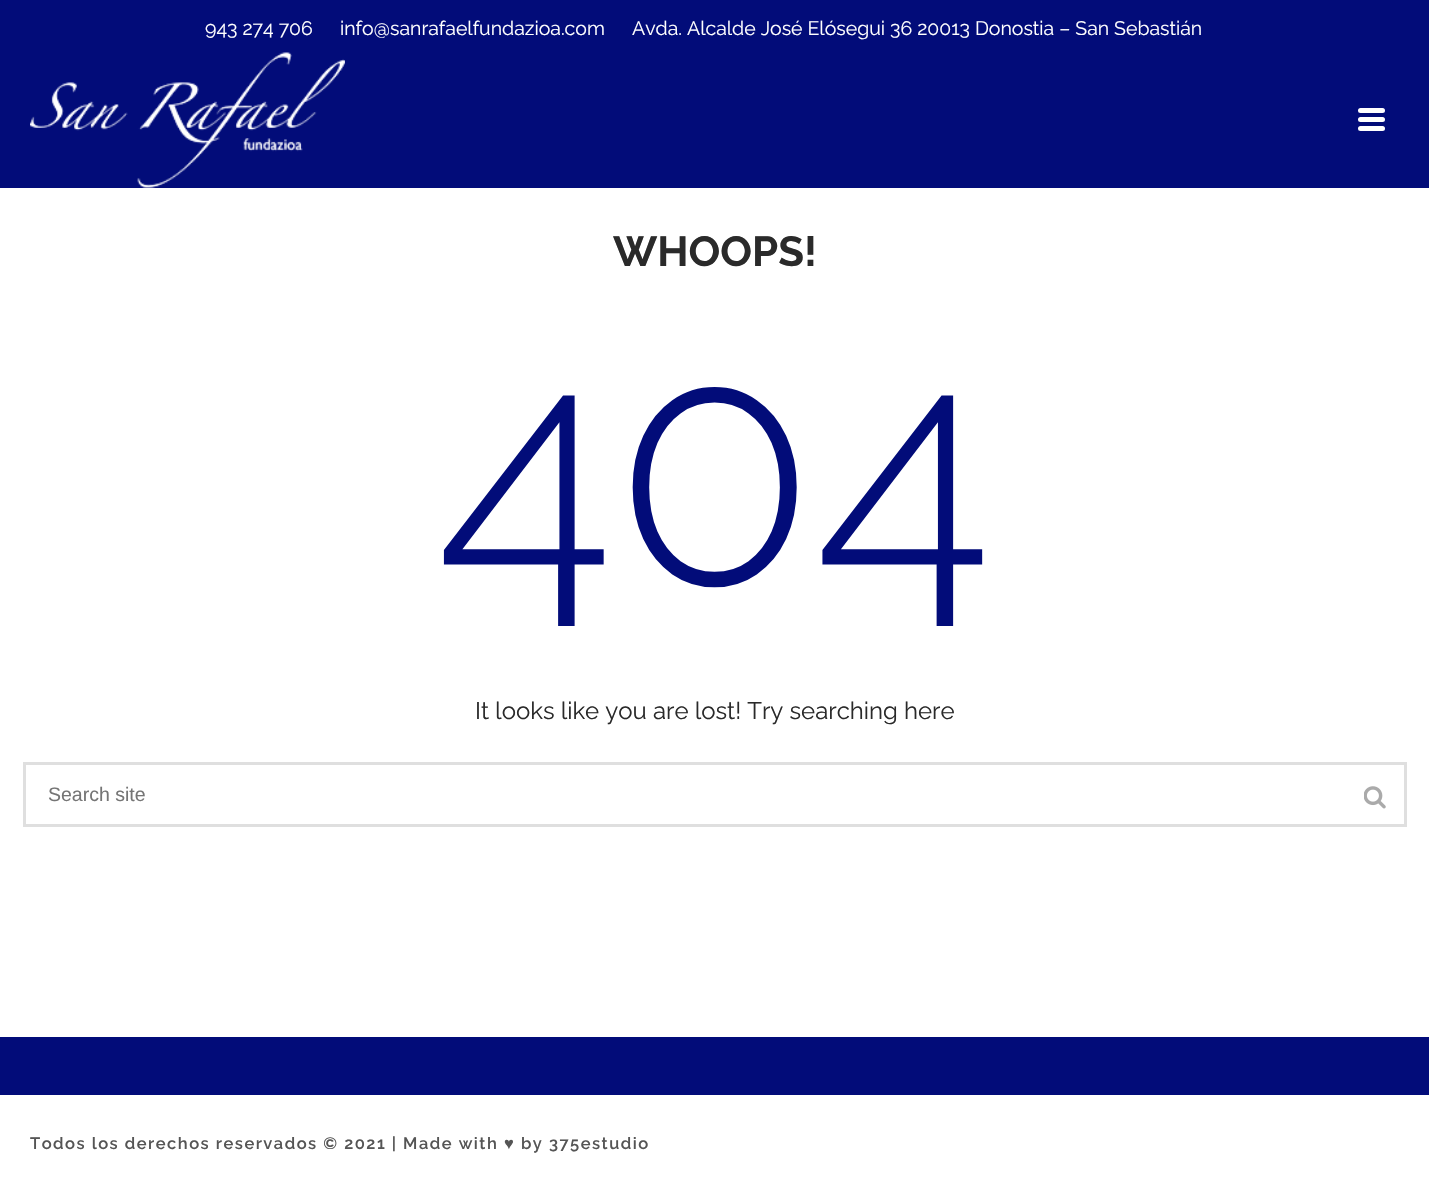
void draw(SkCanvas* canvas) {
	SkPaint paint;
	paint.setAntiAlias(true);
	auto spacedText = [&](const char* s, float x, float y, const SkFont& font, const SkPaint& ink, float letter, float word) {
		std::vector<SkGlyphID> glyphs(font.countText(s, strlen(s), SkTextEncoding::kUTF8));
		std::vector<float> xs(glyphs.size());
		font.textToGlyphs(s, strlen(s), SkTextEncoding::kUTF8, glyphs);
		font.getXPos(glyphs, xs, x);
		float extra = 0;
		for (size_t i = 0; i < glyphs.size(); i++) {
			xs[i] += extra;
			extra += letter + word * (glyphs[i] == font.unicharToGlyph(' '));
		}
		canvas->drawTextBlob(SkTextBlob::MakeFromPosHGlyphs(glyphs, xs, y, font), 0, 0, ink);
	};
	canvas->clear(0xff020c79);
	SkFont f1(fontMgr->matchFamilyStyle("Raleway", SkFontStyle::Normal()), 19.5);
	f1.setSubpixel(true);
	paint.setColor(0xffffffff);
	canvas->drawString("943 274 706", 205, 35, f1, paint);
	canvas->drawString("info@sanrafaelfundazioa.com", 340, 35, f1, paint);
	canvas->drawString("Avda. Alcalde José Elósegui 36 20013 Donostia – San Sebastián", 632, 35, f1, paint);
	canvas->drawImageRect(SkImages::DeferredFromEncodedData(SkData::MakeFromFileName("img1.png")), SkRect::MakeXYWH(30, 52, 315, 136), SkSamplingOptions());
	canvas->drawRoundRect(SkRect::MakeXYWH(1358, 108, 27, 5), 2.5, 2.5, paint);
	canvas->drawRoundRect(SkRect::MakeXYWH(1358, 117, 27, 5), 2.5, 2.5, paint);
	canvas->drawRoundRect(SkRect::MakeXYWH(1358, 126, 27, 5), 2.5, 2.5, paint);
	canvas->drawRect(SkRect::MakeXYWH(0, 188, 1429, 849), paint);
	SkFont f2(fontMgr->matchFamilyStyle("Raleway", SkFontStyle::Bold()), 42);
	f2.setSubpixel(true);
	paint.setColor(0xff2a2a2a);
	canvas->drawString("WHOOPS!", 613, 266, f2, paint);
	SkFont f3(fontMgr->matchFamilyStyle("Raleway", SkFontStyle(300, SkFontStyle::kNormal_Width, SkFontStyle::kUpright_Slant)), 330);
	f3.setSubpixel(true);
	paint.setColor(0xff020c79);
	canvas->drawString("404", 437, 584, f3, paint);
	SkFont f4(fontMgr->matchFamilyStyle("Raleway", SkFontStyle::Normal()), 24);
	f4.setSubpixel(true);
	paint.setColor(0xff2a2a2a);
	canvas->drawString("It looks like you are lost! Try searching here", 475, 719, f4, paint);
	paint.setStroke(true);
	paint.setStrokeWidth(3);
	paint.setColor(0xffdfdfdf);
	canvas->drawRect(SkRect::MakeXYWH(24.5, 763.5, 1381, 62), paint);
	SkFont f5(fontMgr->matchFamilyStyle("Liberation Sans", SkFontStyle::Normal()), 19.5);
	f5.setSubpixel(true);
	paint.setStroke(false);
	paint.setColor(0xff757575);
	canvas->drawString("Search site", 48, 801, f5, paint);
	canvas->drawImageRect(SkImages::DeferredFromEncodedData(SkData::MakeFromFileName("img2.png")), SkRect::MakeXYWH(1364, 786, 22, 23), SkSamplingOptions());
	paint.setColor(0xffffffff);
	canvas->drawRect(SkRect::MakeXYWH(0, 1095, 1429, 91), paint);
	SkFont f6(fontMgr->matchFamilyStyle("Raleway", SkFontStyle(600, SkFontStyle::kNormal_Width, SkFontStyle::kUpright_Slant)), 16.5);
	f6.setSubpixel(true);
	paint.setColor(0xff555555);
	spacedText("Todos los derechos reservados © 2021 | Made with", 30, 1149, f6, paint, 1.5, 0);
	SkFont f7(fontMgr->matchFamilyStyle("Liberation Serif", SkFontStyle::Bold()), 16.5);
	f7.setSubpixel(true);
	spacedText("♥", 504, 1149, f7, paint, 1.5, 0);
	spacedText("by", 521, 1149, f6, paint, 1.5, 0);
	spacedText("375estudio", 549, 1149, f6, paint, 1.5, 0);
}
